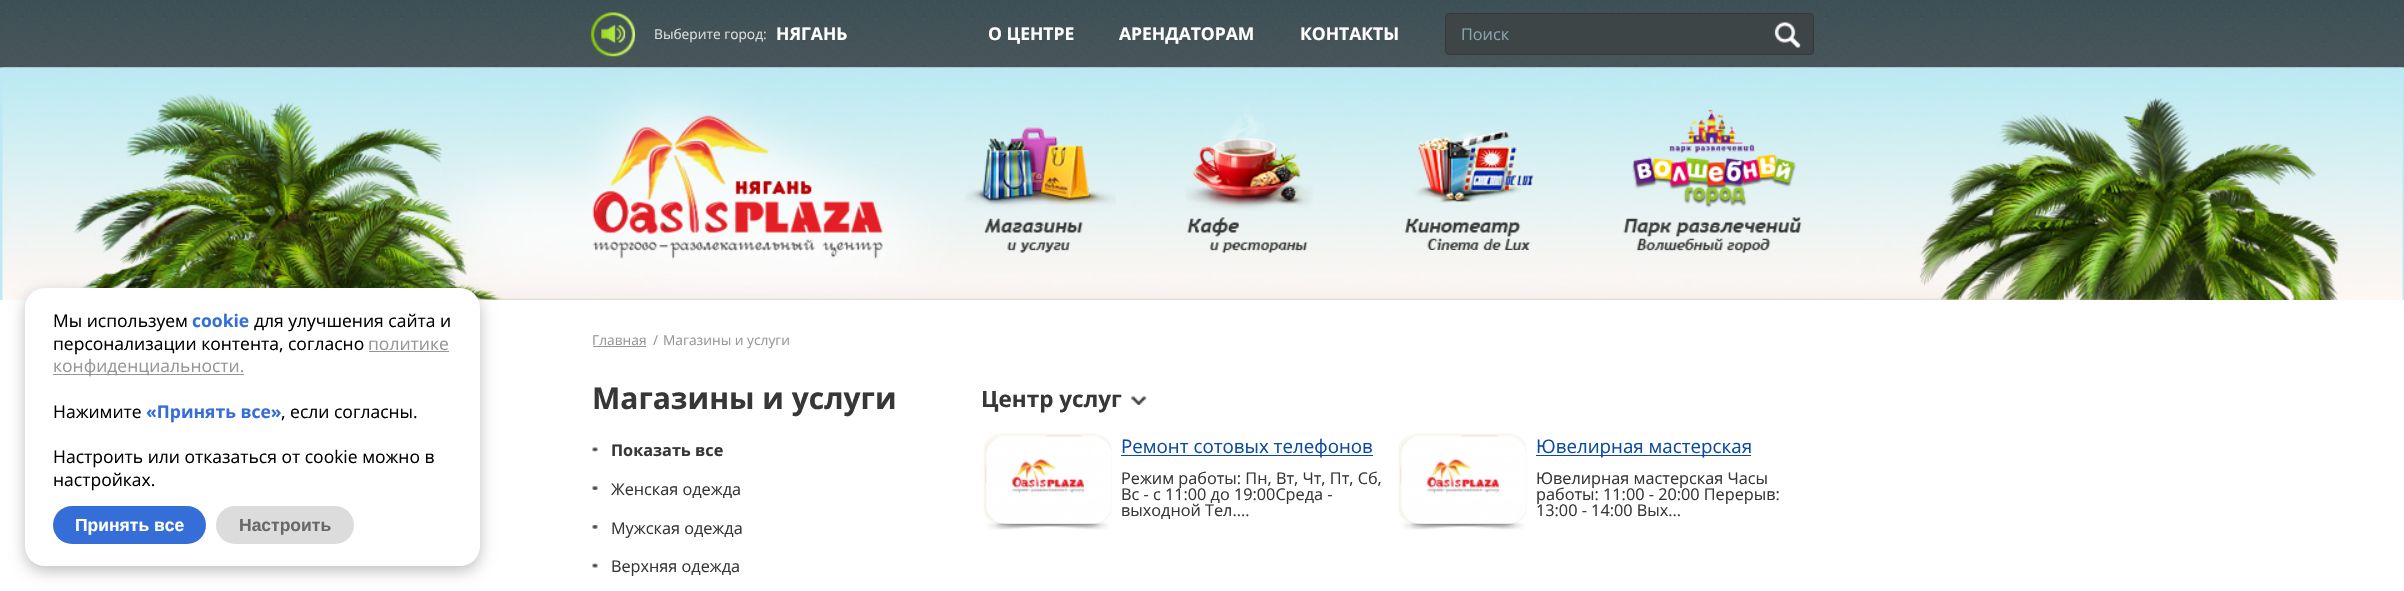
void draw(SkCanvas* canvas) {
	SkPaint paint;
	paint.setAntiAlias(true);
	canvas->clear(0xffffffff);
	paint.setColor(0xffbce9f3);
	canvas->drawRect(SkRect::MakeXYWH(0, 68, 2404, 232), paint);
	canvas->drawImageRect(SkImages::DeferredFromEncodedData(SkData::MakeFromFileName("img1.png")), SkRect::MakeXYWH(0, 0, 2404, 68), SkSamplingOptions());
	canvas->drawImageRect(SkImages::DeferredFromEncodedData(SkData::MakeFromFileName("img4.png")), SkRect::MakeXYWH(2, 67, 2401, 233), SkSamplingOptions());
	paint.setColor(0x40000000);
	paint.setMaskFilter(SkMaskFilter::MakeBlur(kNormal_SkBlurStyle, 7.5));
	canvas->drawRoundRect(SkRect::MakeXYWH(25, 293, 455, 278), 20, 20, paint);
	paint.setMaskFilter(nullptr);
	paint.setColor(0xffffffff);
	canvas->drawRoundRect(SkRect::MakeXYWH(25, 288, 455, 278), 20, 20, paint);
	SkFont f1(fontMgr->matchFamilyStyle("Open Sans", SkFontStyle::Normal()), 17.5);
	f1.setSubpixel(true);
	paint.setColor(0xff000000);
	canvas->drawString("Мы используем", 53, 327, f1, paint);
	SkFont f2(fontMgr->matchFamilyStyle("Open Sans", SkFontStyle::Bold()), 17.5);
	f2.setSubpixel(true);
	paint.setColor(0xff366ed8);
	canvas->drawString("cookie", 192, 327, f2, paint);
	paint.setColor(0xff000000);
	canvas->drawString("для улучшения сайта и", 254, 327, f1, paint);
	canvas->drawString("персонализации контента, согласно", 53, 350, f1, paint);
	paint.setColor(0xff969696);
	canvas->drawString("политике", 368, 350, f1, paint);
	canvas->drawRect(SkRect::MakeXYWH(369, 351, 80, 1), paint);
	canvas->drawRect(SkRect::MakeXYWH(53, 374, 191, 1), paint);
	canvas->drawString("конфиденциальности.", 53, 372, f1, paint);
	paint.setColor(0xff000000);
	canvas->drawString("Нажимите", 53, 418, f1, paint);
	paint.setColor(0xff366ed8);
	canvas->drawString("«Принять все»", 146, 418, f2, paint);
	paint.setColor(0xff000000);
	canvas->drawString(", если согласны.", 281, 418, f1, paint);
	canvas->drawString("Настроить или отказаться от cookie можно в", 53, 463, f1, paint);
	canvas->drawString("настройках.", 53, 486, f1, paint);
	paint.setColor(0xff366ed8);
	canvas->drawRoundRect(SkRect::MakeXYWH(53, 506, 153, 38), 19, 19, paint);
	SkFont f3(fontMgr->matchFamilyStyle("Liberation Sans", SkFontStyle::Bold()), 17.5);
	f3.setSubpixel(true);
	paint.setColor(0xffffffff);
	canvas->drawString("Принять все", 75, 531, f3, paint);
	paint.setColor(0xffdcdcdc);
	canvas->drawRoundRect(SkRect::MakeXYWH(216, 506, 138, 38), 19, 19, paint);
	paint.setColor(0xff686868);
	canvas->drawString("Настроить", 239, 531, f3, paint);
	canvas->drawImageRect(SkImages::DeferredFromEncodedData(SkData::MakeFromFileName("img2.png")), SkRect::MakeXYWH(591, 12, 44, 45), SkSamplingOptions());
	SkFont f4(fontMgr->matchFamilyStyle("Open Sans", SkFontStyle::Normal()), 13.75);
	f4.setSubpixel(true);
	paint.setColor(0xffdddddd);
	canvas->drawString("Выберите город:", 654, 39, f4, paint);
	paint.setColor(0xffffffff);
	canvas->drawString("НЯГАНЬ", 776, 40, f2, paint);
	canvas->drawString("О ЦЕНТРЕ", 988, 40, f2, paint);
	canvas->drawString("АРЕНДАТОРАМ", 1119, 40, f2, paint);
	canvas->drawString("КОНТАКТЫ", 1300, 40, f2, paint);
	paint.setColor(0xff3e4547);
	canvas->drawRoundRect(SkRect::MakeXYWH(1445.5, 13.5, 368, 41), 3.5, 3.5, paint);
	paint.setStroke(true);
	paint.setStrokeWidth(1);
	paint.setColor(0xff32383b);
	canvas->drawRoundRect(SkRect::MakeXYWH(1445.5, 13.5, 368, 41), 3.5, 3.5, paint);
	SkFont f5(fontMgr->matchFamilyStyle("Open Sans", SkFontStyle::Normal()), 16.25);
	f5.setSubpixel(true);
	paint.setStroke(false);
	paint.setColor(0xff86a5af);
	canvas->drawString("Поиск", 1461, 40, f5, paint);
	canvas->drawImageRect(SkImages::DeferredFromEncodedData(SkData::MakeFromFileName("img3.png")), SkRect::MakeXYWH(1774, 22, 27, 26), SkSamplingOptions());
	canvas->drawImageRect(SkImages::DeferredFromEncodedData(SkData::MakeFromFileName("img5.png")), SkRect::MakeXYWH(592, 115, 291, 144), SkSamplingOptions());
	canvas->drawImageRect(SkImages::DeferredFromEncodedData(SkData::MakeFromFileName("img6.png")), SkRect::MakeXYWH(965, 127, 151, 126), SkSamplingOptions());
	canvas->drawImageRect(SkImages::DeferredFromEncodedData(SkData::MakeFromFileName("img7.png")), SkRect::MakeXYWH(1186, 106, 127, 147), SkSamplingOptions());
	canvas->drawImageRect(SkImages::DeferredFromEncodedData(SkData::MakeFromFileName("img8.png")), SkRect::MakeXYWH(1404, 130, 131, 120), SkSamplingOptions());
	canvas->drawImageRect(SkImages::DeferredFromEncodedData(SkData::MakeFromFileName("img9.png")), SkRect::MakeXYWH(1623, 109, 179, 144), SkSamplingOptions());
	paint.setColor(0xff969696);
	canvas->drawString("Главная", 592, 345, f4, paint);
	canvas->drawRect(SkRect::MakeXYWH(593, 346, 53, 1), paint);
	canvas->drawString("/", 653, 345, f4, paint);
	canvas->drawString("Магазины и услуги", 663, 345, f4, paint);
	SkFont f6(fontMgr->matchFamilyStyle("Open Sans", SkFontStyle::Bold()), 30);
	f6.setSubpixel(true);
	paint.setColor(0xff373737);
	canvas->drawString("Магазины и услуги", 592, 409, f6, paint);
	canvas->drawImageRect(SkImages::DeferredFromEncodedData(SkData::MakeFromFileName("img10.png")), SkRect::MakeXYWH(592, 447, 6, 5), SkSamplingOptions());
	SkFont f7(fontMgr->matchFamilyStyle("Open Sans", SkFontStyle::Bold()), 16.25);
	f7.setSubpixel(true);
	canvas->drawString("Показать все", 611, 456, f7, paint);
	canvas->drawImageRect(SkImages::DeferredFromEncodedData(SkData::MakeFromFileName("img11.png")), SkRect::MakeXYWH(592, 486, 6, 4), SkSamplingOptions());
	canvas->drawString("Женская одежда", 611, 495, f5, paint);
	canvas->drawImageRect(SkImages::DeferredFromEncodedData(SkData::MakeFromFileName("img12.png")), SkRect::MakeXYWH(592, 525, 6, 4), SkSamplingOptions());
	canvas->drawString("Мужская одежда", 611, 534, f5, paint);
	canvas->drawImageRect(SkImages::DeferredFromEncodedData(SkData::MakeFromFileName("img13.png")), SkRect::MakeXYWH(592, 563, 6, 5), SkSamplingOptions());
	canvas->drawString("Верхняя одежда", 611, 572, f5, paint);
	canvas->drawImageRect(SkImages::DeferredFromEncodedData(SkData::MakeFromFileName("img14.png")), SkRect::MakeXYWH(1131, 396, 16, 9), SkSamplingOptions());
	SkFont f8(fontMgr->matchFamilyStyle("Open Sans", SkFontStyle::Bold()), 22.5);
	f8.setSubpixel(true);
	canvas->drawString("Центр услуг", 981, 407, f8, paint);
	canvas->drawImageRect(SkImages::DeferredFromEncodedData(SkData::MakeFromFileName("img15.png")), SkRect::MakeXYWH(983, 433, 129, 97), SkSamplingOptions());
	canvas->drawImageRect(SkImages::DeferredFromEncodedData(SkData::MakeFromFileName("img16.png")), SkRect::MakeXYWH(986, 436, 125, 88), SkSamplingOptions());
	paint.setColor(0xff0a4aa2);
	canvas->drawRect(SkRect::MakeXYWH(1121, 455, 252, 1), paint);
	SkFont f9(fontMgr->matchFamilyStyle("Open Sans", SkFontStyle::Normal()), 18.75);
	f9.setSubpixel(true);
	canvas->drawString("Ремонт сотовых телефонов", 1121, 453, f9, paint);
	paint.setColor(0xff373737);
	canvas->drawString("Режим работы: Пн, Вт, Чт, Пт, Сб,", 1121, 484, f5, paint);
	canvas->drawString("Вс - с 11:00 до 19:00Среда -", 1121, 500, f5, paint);
	canvas->drawString("выходной Тел....", 1121, 516, f5, paint);
	canvas->drawImageRect(SkImages::DeferredFromEncodedData(SkData::MakeFromFileName("img15.png")), SkRect::MakeXYWH(1398, 433, 129, 97), SkSamplingOptions());
	canvas->drawImageRect(SkImages::DeferredFromEncodedData(SkData::MakeFromFileName("img17.png")), SkRect::MakeXYWH(1401, 436, 125, 88), SkSamplingOptions());
	paint.setColor(0xff0a4aa2);
	canvas->drawRect(SkRect::MakeXYWH(1536, 455, 215, 1), paint);
	canvas->drawString("Ювелирная мастерская", 1536, 453, f9, paint);
	paint.setColor(0xff373737);
	canvas->drawString("Ювелирная мастерская Часы", 1536, 484, f5, paint);
	canvas->drawString("работы: 11:00 - 20:00 Перерыв:", 1536, 500, f5, paint);
	canvas->drawString("13:00 - 14:00 Вых...", 1536, 516, f5, paint);
}
